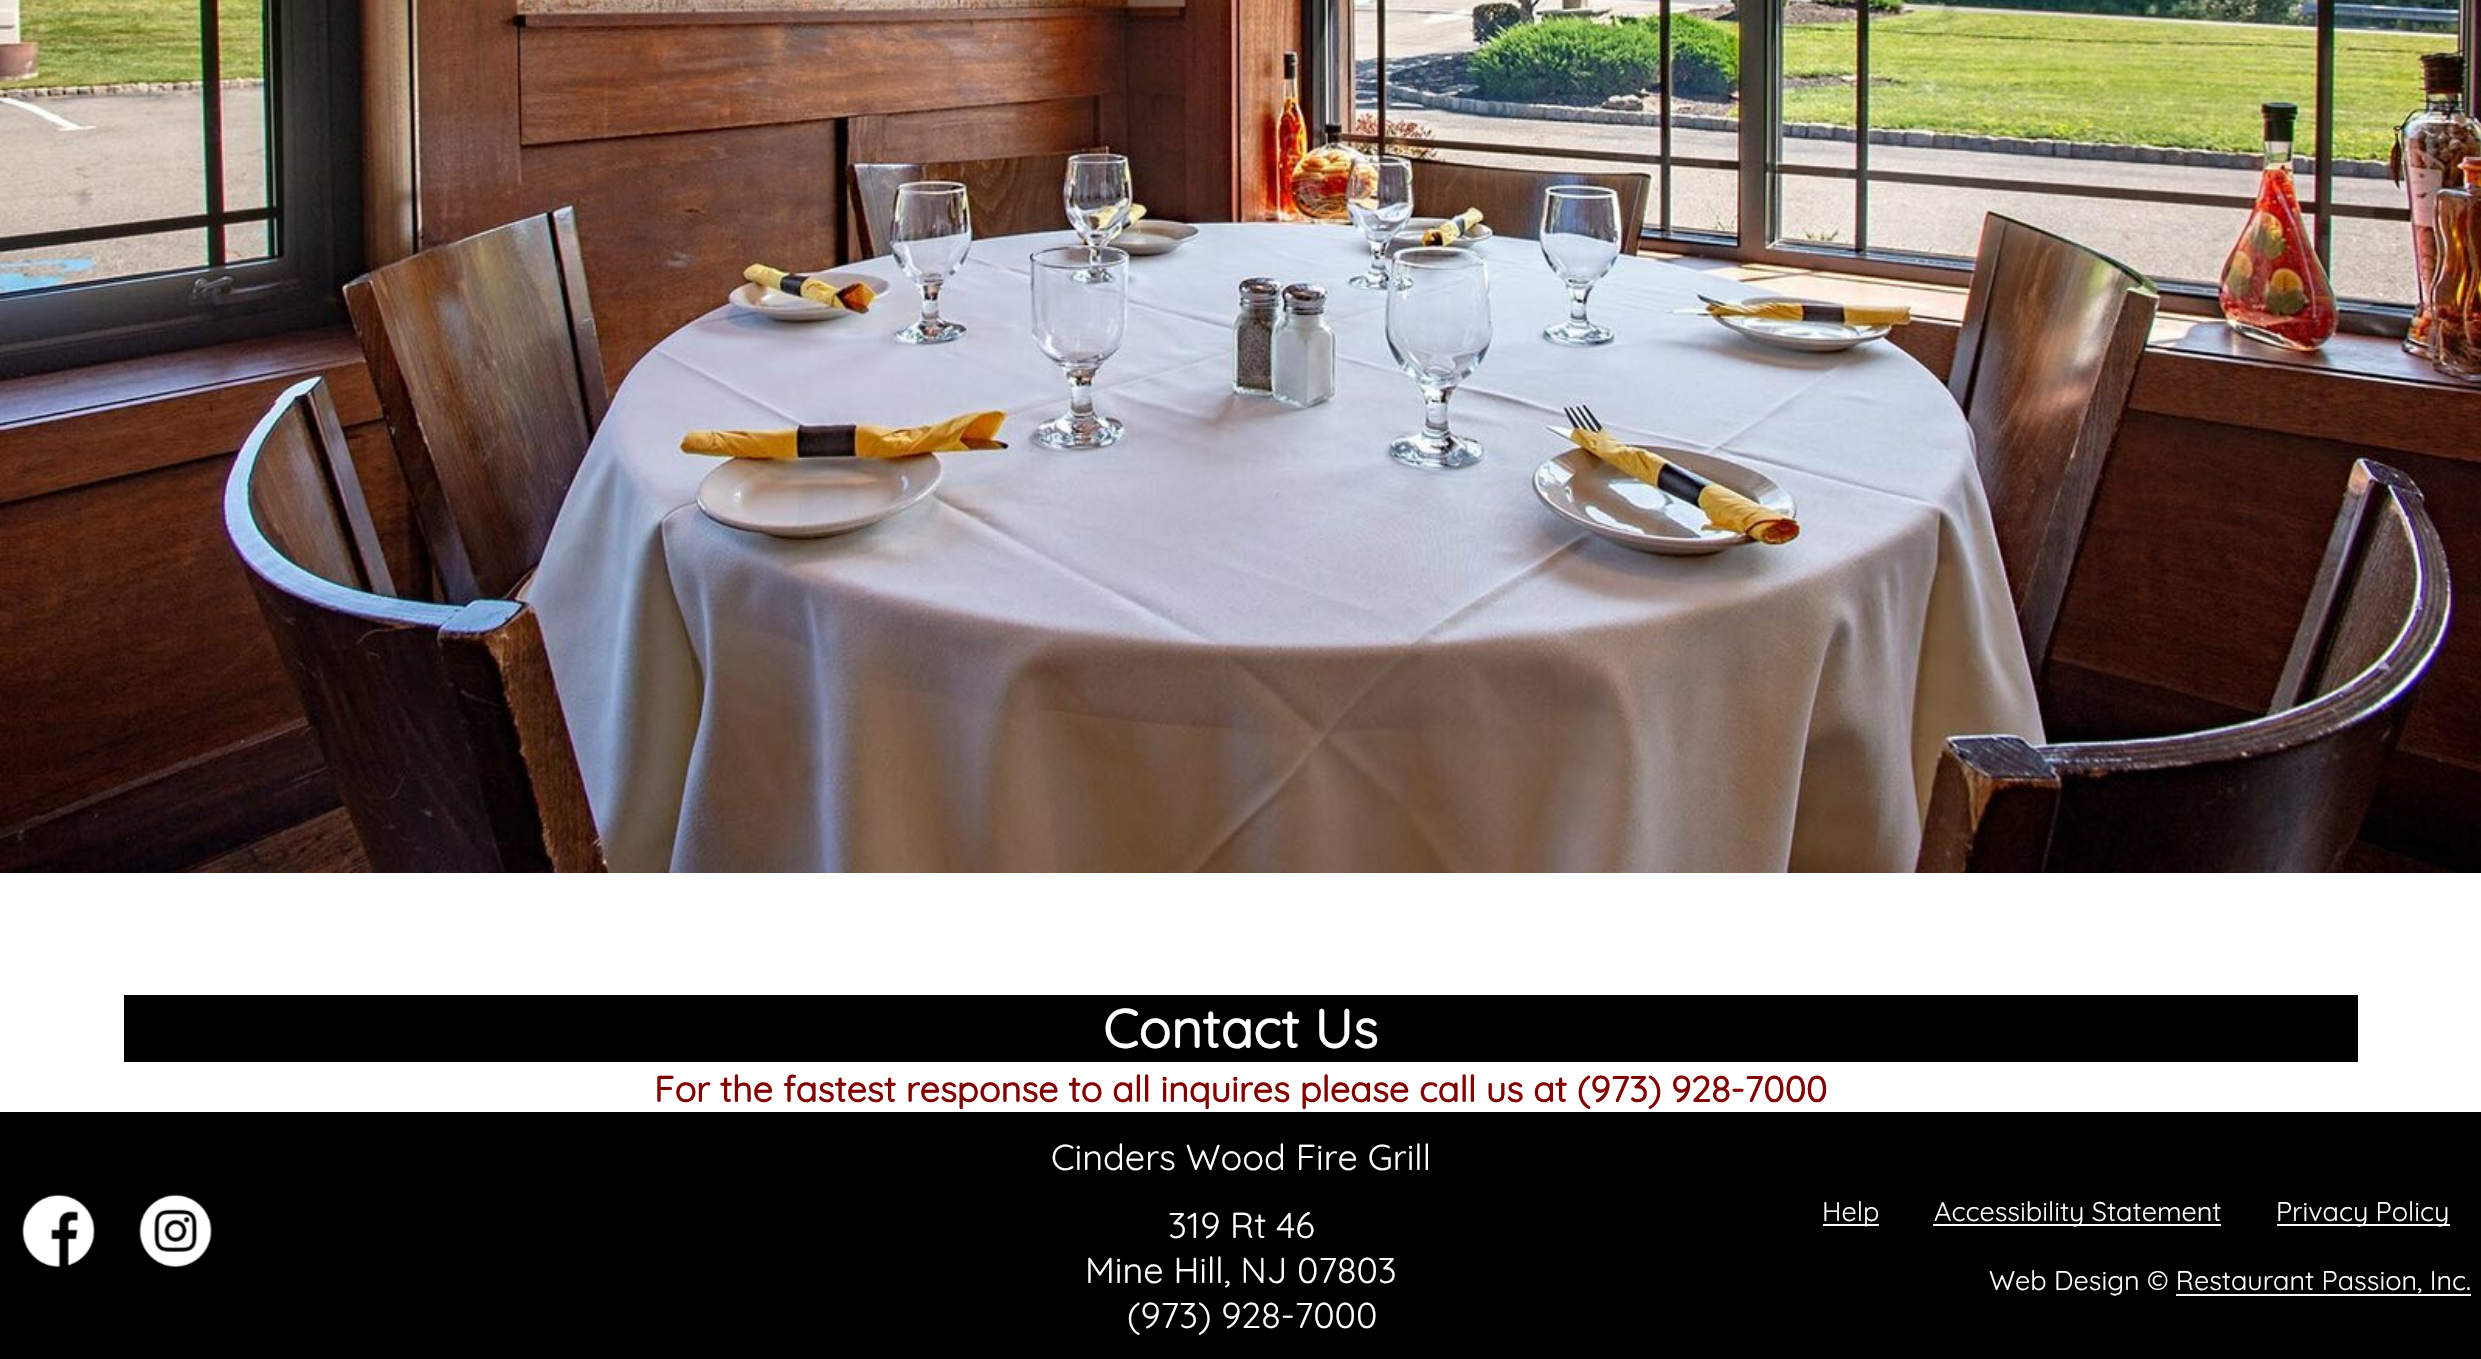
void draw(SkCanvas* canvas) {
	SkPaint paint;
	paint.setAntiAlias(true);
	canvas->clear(0xffffffff);
	canvas->drawImageRect(SkImages::DeferredFromEncodedData(SkData::MakeFromFileName("img1.png")), SkRect::MakeXYWH(0, 0, 2481, 873), SkSamplingOptions());
	paint.setColor(0xff000000);
	canvas->drawRect(SkRect::MakeXYWH(124, 995, 2234, 67), paint);
	SkFont f1(fontMgr->matchFamilyStyle("Quicksand", SkFontStyle::Bold()), 54);
	f1.setSubpixel(true);
	paint.setColor(0xffffffff);
	canvas->drawString("Contact Us", 1103, 1048, f1, paint);
	SkFont f2(fontMgr->matchFamilyStyle("Quicksand", SkFontStyle::Bold()), 36);
	f2.setSubpixel(true);
	paint.setColor(0xff830000);
	canvas->drawString("For the fastest response to all inquires please call us at (973) 928-7000", 654, 1102, f2, paint);
	paint.setColor(0xff000000);
	canvas->drawRect(SkRect::MakeXYWH(0, 1112, 2481, 247), paint);
	canvas->drawImageRect(SkImages::DeferredFromEncodedData(SkData::MakeFromFileName("img2.png")), SkRect::MakeXYWH(22, 1194, 73, 73), SkSamplingOptions());
	canvas->drawImageRect(SkImages::DeferredFromEncodedData(SkData::MakeFromFileName("img3.png")), SkRect::MakeXYWH(139, 1194, 73, 73), SkSamplingOptions());
	SkFont f3(fontMgr->matchFamilyStyle("Quicksand", SkFontStyle(300, SkFontStyle::kNormal_Width, SkFontStyle::kUpright_Slant)), 36);
	f3.setSubpixel(true);
	paint.setColor(0xffffffff);
	canvas->drawString("Cinders Wood Fire Grill", 1051, 1170, f3, paint);
	canvas->drawString("319 Rt 46", 1168, 1238, f3, paint);
	canvas->drawString("Mine Hill, NJ 07803", 1085, 1283, f3, paint);
	canvas->drawString("(973) 928-7000", 1127, 1328, f3, paint);
	canvas->drawRect(SkRect::MakeXYWH(1823, 1224, 56, 2), paint);
	SkFont f4(fontMgr->matchFamilyStyle("Quicksand", SkFontStyle(300, SkFontStyle::kNormal_Width, SkFontStyle::kUpright_Slant)), 27);
	f4.setSubpixel(true);
	canvas->drawString("Help", 1822, 1221, f4, paint);
	canvas->drawRect(SkRect::MakeXYWH(1933, 1224, 288, 2), paint);
	canvas->drawString("Accessibility Statement", 1934, 1221, f4, paint);
	canvas->drawRect(SkRect::MakeXYWH(2277, 1224, 173, 2), paint);
	canvas->drawString("Privacy Policy", 2276, 1221, f4, paint);
	canvas->drawString("Web Design © Restaurant Passion, Inc.", 1989, 1290, f4, paint);
	canvas->drawRect(SkRect::MakeXYWH(2176, 1294, 295, 2), paint);
}
